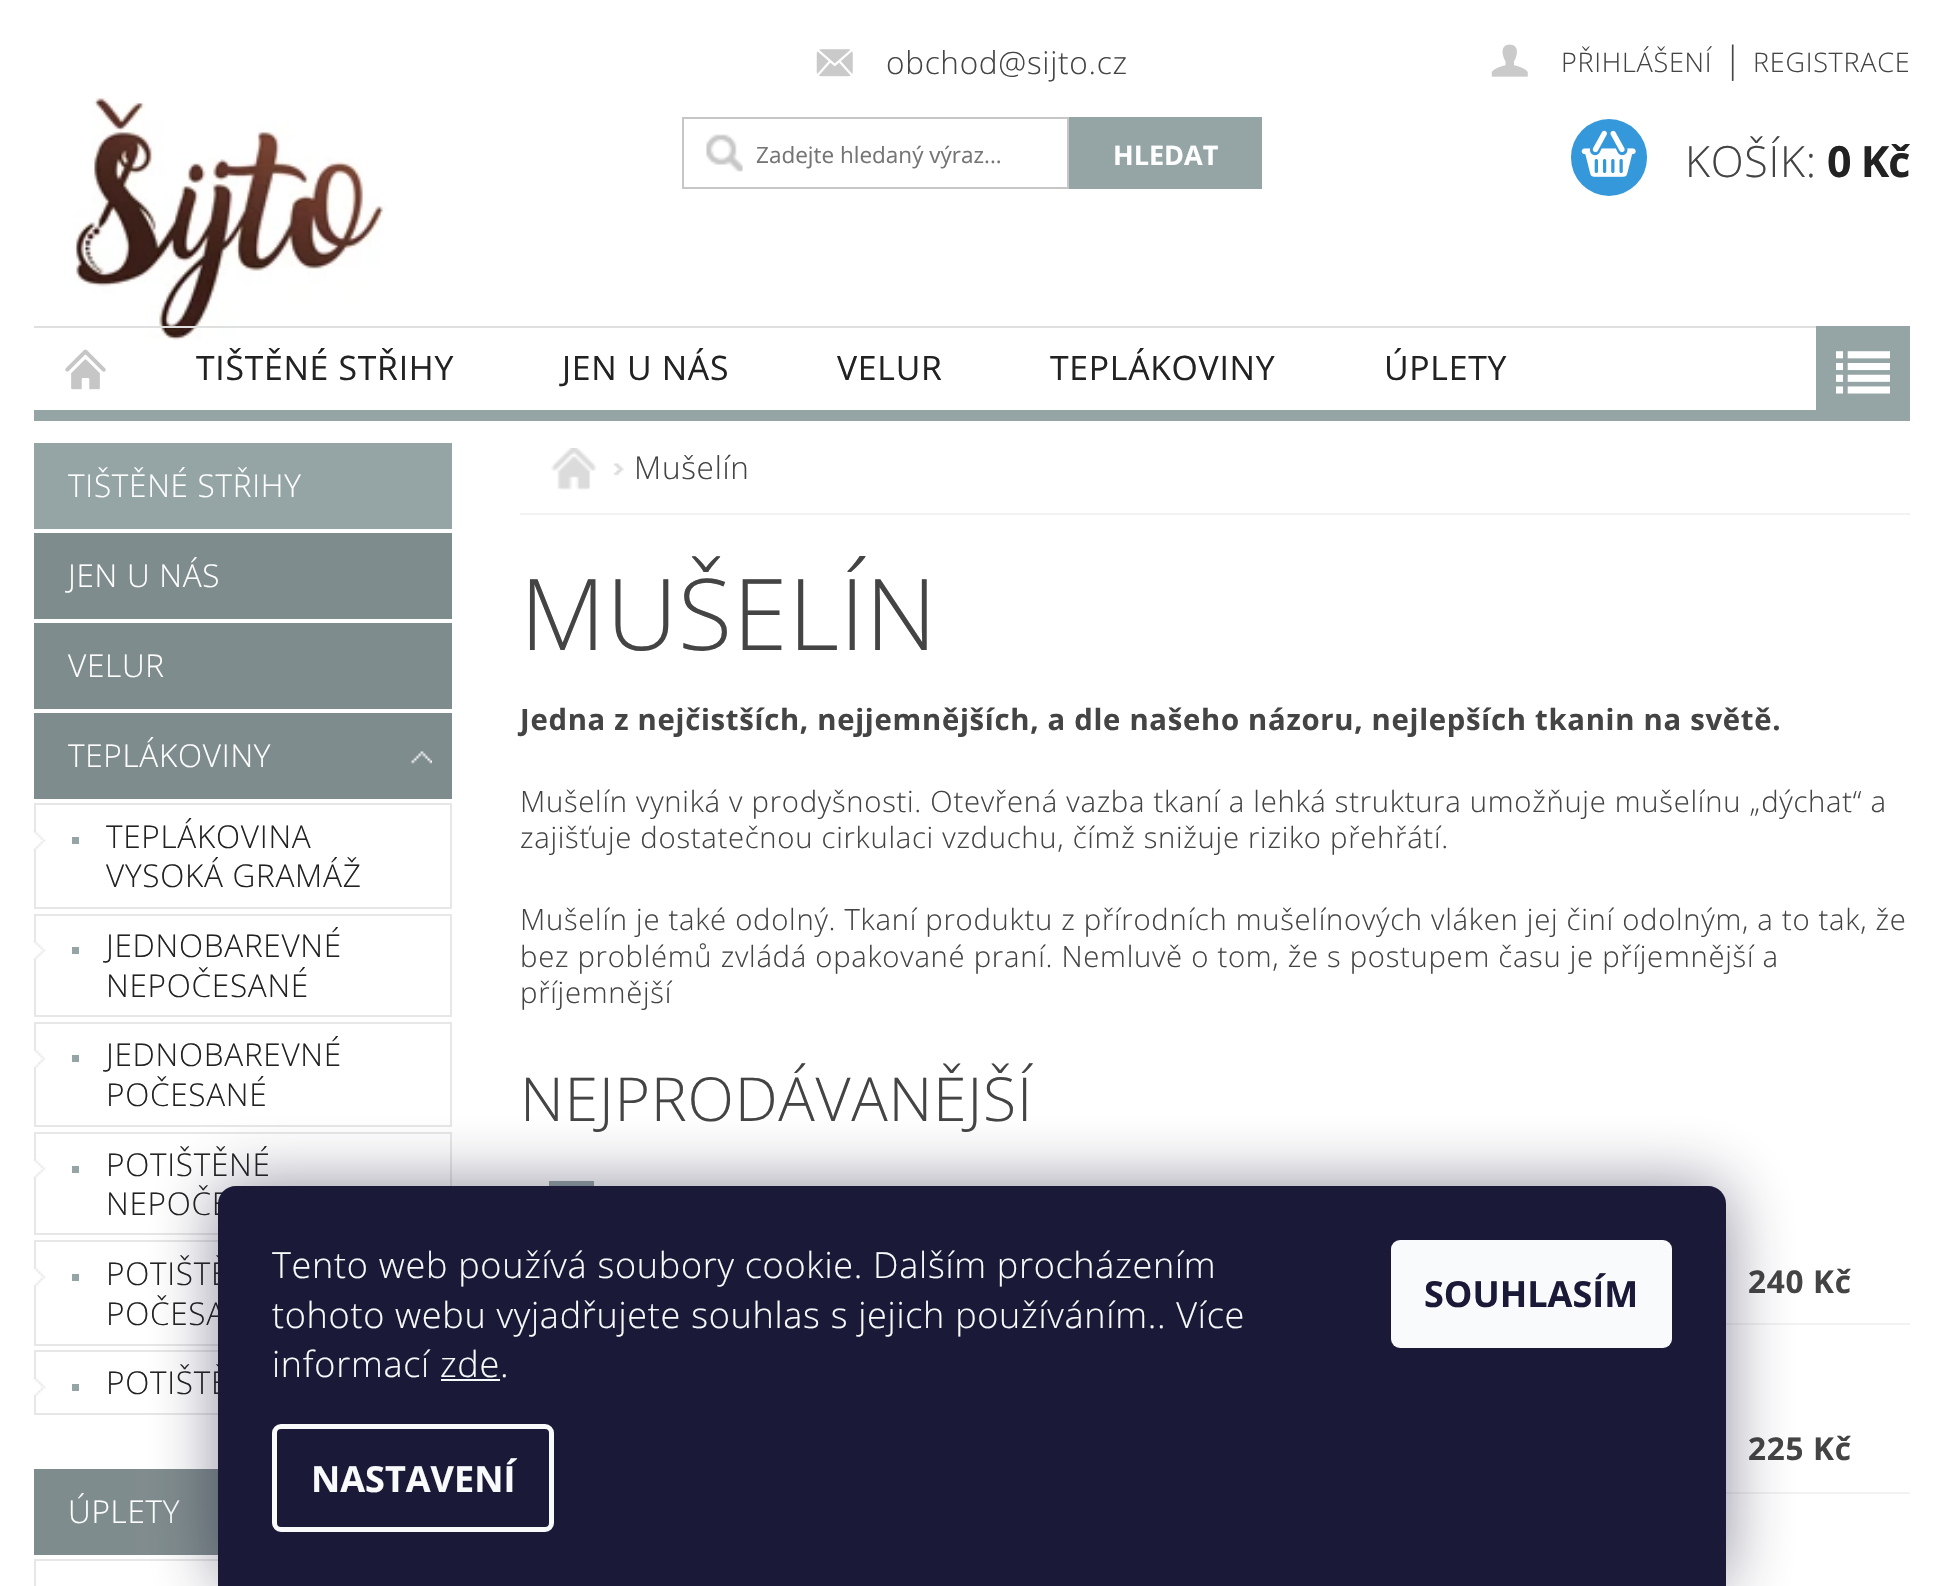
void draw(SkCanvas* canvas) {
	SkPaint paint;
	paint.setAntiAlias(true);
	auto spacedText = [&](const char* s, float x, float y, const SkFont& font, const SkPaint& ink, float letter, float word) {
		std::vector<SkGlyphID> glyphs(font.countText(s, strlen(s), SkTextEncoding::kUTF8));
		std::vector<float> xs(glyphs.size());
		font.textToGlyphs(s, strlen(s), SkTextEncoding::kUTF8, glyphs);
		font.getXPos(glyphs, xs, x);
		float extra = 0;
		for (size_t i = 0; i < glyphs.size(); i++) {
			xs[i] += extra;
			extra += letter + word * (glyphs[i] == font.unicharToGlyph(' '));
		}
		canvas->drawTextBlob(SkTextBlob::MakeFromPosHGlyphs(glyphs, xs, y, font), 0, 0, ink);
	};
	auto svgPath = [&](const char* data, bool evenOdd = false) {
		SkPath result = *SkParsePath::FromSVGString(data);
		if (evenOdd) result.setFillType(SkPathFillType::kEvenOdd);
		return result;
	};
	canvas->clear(0xffffffff);
	paint.setColor(0xff95a5a6);
	canvas->drawRect(SkRect::MakeXYWH(34, 410, 1782, 11), paint);
	canvas->drawImageRect(SkImages::DeferredFromEncodedData(SkData::MakeFromFileName("img1.png")), SkRect::MakeXYWH(74, 97, 313, 244), SkSamplingOptions());
	canvas->drawImageRect(SkImages::DeferredFromEncodedData(SkData::MakeFromFileName("img2.png")), SkRect::MakeXYWH(816, 49, 37, 28), SkSamplingOptions());
	SkFont f1(fontMgr->matchFamilyStyle("Open Sans", SkFontStyle(300, SkFontStyle::kNormal_Width, SkFontStyle::kUpright_Slant)), 31.5);
	f1.setSubpixel(true);
	paint.setColor(0xff444444);
	spacedText("obchod@sijto.cz", 886, 74, f1, paint, 0.72, 0);
	canvas->drawImageRect(SkImages::DeferredFromEncodedData(SkData::MakeFromFileName("img3.png")), SkRect::MakeXYWH(706, 134, 37, 38), SkSamplingOptions());
	paint.setStroke(true);
	paint.setStrokeWidth(2);
	paint.setColor(0xffc6c6c6);
	canvas->drawRect(SkRect::MakeXYWH(683, 118, 385, 70), paint);
	SkFont f2(fontMgr->matchFamilyStyle("Open Sans", SkFontStyle::Normal()), 22.5);
	f2.setSubpixel(true);
	paint.setStroke(false);
	paint.setColor(0xff757575);
	canvas->drawString("Zadejte hledaný výraz...", 756, 163, f2, paint);
	paint.setColor(0xff95a5a6);
	canvas->drawRect(SkRect::MakeXYWH(1069, 117, 193, 72), paint);
	SkFont f3(fontMgr->matchFamilyStyle("Open Sans", SkFontStyle::Bold()), 27);
	f3.setSubpixel(true);
	paint.setColor(0xffffffff);
	canvas->drawString("HLEDAT", 1113, 165, f3, paint);
	canvas->drawImageRect(SkImages::DeferredFromEncodedData(SkData::MakeFromFileName("img4.png")), SkRect::MakeXYWH(1491, 44, 37, 33), SkSamplingOptions());
	SkFont f4(fontMgr->matchFamilyStyle("Open Sans", SkFontStyle(300, SkFontStyle::kNormal_Width, SkFontStyle::kUpright_Slant)), 27);
	f4.setSubpixel(true);
	paint.setColor(0xff444444);
	spacedText("PŘIHLÁŠENÍ", 1561, 72, f4, paint, 0.72, 0);
	SkFont f5(fontMgr->matchFamilyStyle("Open Sans", SkFontStyle(300, SkFontStyle::kNormal_Width, SkFontStyle::kUpright_Slant)), 36);
	f5.setSubpixel(true);
	spacedText("|", 1723, 72, f5, paint, 0.72, 0);
	spacedText("REGISTRACE", 1753, 72, f4, paint, 0.72, 0);
	paint.setColor(0xff3498db);
	canvas->drawRoundRect(SkRect::MakeXYWH(1571, 119, 76, 77), 38, 38, paint);
	canvas->drawImageRect(SkImages::DeferredFromEncodedData(SkData::MakeFromFileName("img5.png")), SkRect::MakeXYWH(1581, 130, 55, 47), SkSamplingOptions());
	SkFont f6(fontMgr->matchFamilyStyle("Open Sans", SkFontStyle(300, SkFontStyle::kNormal_Width, SkFontStyle::kUpright_Slant)), 43);
	f6.setSubpixel(true);
	paint.setColor(0xff444444);
	spacedText("KOŠÍK:", 1685, 177, f6, paint, 0.72, 0);
	SkFont f7(fontMgr->matchFamilyStyle("Open Sans", SkFontStyle::Bold()), 43);
	f7.setSubpixel(true);
	paint.setColor(0xff222222);
	spacedText("0 Kč", 1827, 177, f7, paint, -1, 0);
	paint.setColor(0xffe0e0e0);
	canvas->drawRect(SkRect::MakeXYWH(34, 326, 1782, 2), paint);
	canvas->drawImageRect(SkImages::DeferredFromEncodedData(SkData::MakeFromFileName("img6.png")), SkRect::MakeXYWH(65, 349, 41, 41), SkSamplingOptions());
	SkFont f8(fontMgr->matchFamilyStyle("Open Sans", SkFontStyle::Normal()), 33.75);
	f8.setSubpixel(true);
	paint.setColor(0xff222222);
	spacedText("TIŠTĚNÉ STŘIHY", 196, 380, f8, paint, 0.72, 0);
	spacedText("JEN U NÁS", 562, 380, f8, paint, 0.72, 0);
	spacedText("VELUR", 837, 380, f8, paint, 0.72, 0);
	spacedText("TEPLÁKOVINY", 1050, 380, f8, paint, 0.72, 0);
	spacedText("ÚPLETY", 1384, 380, f8, paint, 0.72, 0);
	paint.setColor(0xff95a5a6);
	canvas->drawRect(SkRect::MakeXYWH(1816, 326, 94, 95), paint);
	canvas->drawImageRect(SkImages::DeferredFromEncodedData(SkData::MakeFromFileName("img7.png")), SkRect::MakeXYWH(1836, 351, 54, 43), SkSamplingOptions());
	canvas->drawRect(SkRect::MakeXYWH(34, 443, 418, 86), paint);
	paint.setColor(0xffffffff);
	spacedText("TIŠTĚNÉ STŘIHY", 68, 497, f1, paint, 0.72, 0);
	paint.setColor(0xff7f8c8d);
	canvas->drawRect(SkRect::MakeXYWH(34, 533, 418, 86), paint);
	paint.setColor(0xffffffff);
	spacedText("JEN U NÁS", 68, 587, f1, paint, 0.72, 0);
	paint.setColor(0xff7f8c8d);
	canvas->drawRect(SkRect::MakeXYWH(34, 623, 418, 86), paint);
	paint.setColor(0xffffffff);
	spacedText("VELUR", 68, 677, f1, paint, 0.72, 0);
	paint.setColor(0xff7f8c8d);
	canvas->drawRect(SkRect::MakeXYWH(34, 713, 418, 86), paint);
	canvas->drawImageRect(SkImages::DeferredFromEncodedData(SkData::MakeFromFileName("img8.png")), SkRect::MakeXYWH(411, 751, 21, 13), SkSamplingOptions());
	paint.setColor(0xffffffff);
	spacedText("TEPLÁKOVINY", 68, 767, f1, paint, 0.72, 0);
	paint.setStroke(true);
	paint.setColor(0xffe7e7e7);
	canvas->drawRect(SkRect::MakeXYWH(35, 804, 416, 104), paint);
	canvas->drawImageRect(SkImages::DeferredFromEncodedData(SkData::MakeFromFileName("img9.png")), SkRect::MakeXYWH(33, 830, 13, 21), SkSamplingOptions());
	paint.setStroke(false);
	paint.setColor(0xff95a5a6);
	canvas->drawRect(SkRect::MakeXYWH(72, 837, 7, 7), paint);
	paint.setColor(0xff222222);
	spacedText("TEPLÁKOVINA", 106, 848, f1, paint, 0.72, 0);
	spacedText("VYSOKÁ GRAMÁŽ", 106, 887, f1, paint, 0.72, 0);
	paint.setStroke(true);
	paint.setColor(0xffe7e7e7);
	canvas->drawRect(SkRect::MakeXYWH(35, 915, 416, 101), paint);
	canvas->drawImageRect(SkImages::DeferredFromEncodedData(SkData::MakeFromFileName("img10.png")), SkRect::MakeXYWH(33, 941, 13, 19), SkSamplingOptions());
	paint.setStroke(false);
	paint.setColor(0xff95a5a6);
	canvas->drawRect(SkRect::MakeXYWH(72, 947, 7, 7), paint);
	paint.setColor(0xff222222);
	spacedText("JEDNOBAREVNÉ", 106, 957, f1, paint, 0.72, 0);
	spacedText("NEPOČESANÉ", 106, 997, f1, paint, 0.72, 0);
	paint.setStroke(true);
	paint.setColor(0xffe7e7e7);
	canvas->drawRect(SkRect::MakeXYWH(35, 1023, 416, 103), paint);
	canvas->drawImageRect(SkImages::DeferredFromEncodedData(SkData::MakeFromFileName("img11.png")), SkRect::MakeXYWH(33, 1049, 13, 20), SkSamplingOptions());
	paint.setStroke(false);
	paint.setColor(0xff95a5a6);
	canvas->drawRect(SkRect::MakeXYWH(72, 1055, 7, 7), paint);
	paint.setColor(0xff222222);
	spacedText("JEDNOBAREVNÉ", 106, 1066, f1, paint, 0.72, 0);
	spacedText("POČESANÉ", 106, 1106, f1, paint, 0.72, 0);
	paint.setStroke(true);
	paint.setColor(0xffe7e7e7);
	canvas->drawRect(SkRect::MakeXYWH(35, 1133, 416, 101), paint);
	canvas->drawImageRect(SkImages::DeferredFromEncodedData(SkData::MakeFromFileName("img12.png")), SkRect::MakeXYWH(33, 1159, 13, 20), SkSamplingOptions());
	paint.setStroke(false);
	paint.setColor(0xff95a5a6);
	canvas->drawRect(SkRect::MakeXYWH(72, 1166, 7, 7), paint);
	paint.setColor(0xff222222);
	spacedText("POTIŠTĚNÉ", 106, 1176, f1, paint, 0.72, 0);
	spacedText("NEPOČE", 106, 1215, f1, paint, 0.72, 0);
	paint.setStroke(true);
	paint.setColor(0xffe7e7e7);
	canvas->drawRect(SkRect::MakeXYWH(35, 1241, 416, 104), paint);
	canvas->drawImageRect(SkImages::DeferredFromEncodedData(SkData::MakeFromFileName("img13.png")), SkRect::MakeXYWH(33, 1267, 13, 20), SkSamplingOptions());
	paint.setStroke(false);
	paint.setColor(0xff95a5a6);
	canvas->drawRect(SkRect::MakeXYWH(72, 1274, 7, 7), paint);
	paint.setColor(0xff222222);
	spacedText("POTIŠTĚ", 106, 1285, f1, paint, 0.72, 0);
	spacedText("POČESA", 106, 1325, f1, paint, 0.72, 0);
	paint.setStroke(true);
	paint.setColor(0xffe7e7e7);
	canvas->drawRect(SkRect::MakeXYWH(35, 1351, 416, 63), paint);
	canvas->drawImageRect(SkImages::DeferredFromEncodedData(SkData::MakeFromFileName("img14.png")), SkRect::MakeXYWH(33, 1377, 13, 20), SkSamplingOptions());
	paint.setStroke(false);
	paint.setColor(0xff95a5a6);
	canvas->drawRect(SkRect::MakeXYWH(72, 1384, 7, 7), paint);
	paint.setColor(0xff222222);
	spacedText("POTIŠTĚ", 106, 1394, f1, paint, 0.72, 0);
	paint.setColor(0xff7f8c8d);
	canvas->drawRect(SkRect::MakeXYWH(34, 1469, 184, 86), paint);
	paint.setColor(0xffffffff);
	spacedText("ÚPLETY", 68, 1523, f1, paint, 0.72, 0);
	paint.setStroke(true);
	paint.setColor(0xffe7e7e7);
	canvas->drawRect(SkRect::MakeXYWH(35, 1560, 416, 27), paint);
	paint.setStroke(false);
	paint.setColor(0xfff2f2f2);
	canvas->drawRect(SkRect::MakeXYWH(520, 513, 1390, 2), paint);
	canvas->drawImageRect(SkImages::DeferredFromEncodedData(SkData::MakeFromFileName("img15.png")), SkRect::MakeXYWH(551, 448, 45, 42), SkSamplingOptions());
	canvas->drawImageRect(SkImages::DeferredFromEncodedData(SkData::MakeFromFileName("img16.png")), SkRect::MakeXYWH(614, 463, 10, 13), SkSamplingOptions());
	paint.setColor(0xff444444);
	spacedText("Mušelín", 634, 479, f1, paint, 0.72, 0);
	SkFont f9(fontMgr->matchFamilyStyle("Open Sans", SkFontStyle(300, SkFontStyle::kNormal_Width, SkFontStyle::kUpright_Slant)), 99);
	f9.setSubpixel(true);
	spacedText("MUŠELÍN", 520, 650, f9, paint, 0.72, 0);
	SkFont f10(fontMgr->matchFamilyStyle("Open Sans", SkFontStyle::Bold()), 29.25);
	f10.setSubpixel(true);
	spacedText("Jedna z nejčistších, nejjemnějších, a dle našeho názoru, nejlepších tkanin na světě.", 520, 730, f10, paint, 0.72, 0);
	SkFont f11(fontMgr->matchFamilyStyle("Open Sans", SkFontStyle(300, SkFontStyle::kNormal_Width, SkFontStyle::kUpright_Slant)), 29.25);
	f11.setSubpixel(true);
	spacedText("Mušelín vyniká v prodyšnosti. Otevřená vazba tkaní a lehká struktura umožňuje mušelínu „dýchat“ a", 520, 812, f11, paint, 0.72, 0);
	spacedText("zajišťuje dostatečnou cirkulaci vzduchu, čímž snižuje riziko přehřátí.", 520, 848, f11, paint, 0.72, 0);
	spacedText("Mušelín je také odolný. Tkaní produktu z přírodních mušelínových vláken jej činí odolným, a to tak, že", 520, 930, f11, paint, 0.72, 0);
	spacedText("bez problémů zvládá opakované praní. Nemluvě o tom, že s postupem času je příjemnější a", 520, 967, f11, paint, 0.72, 0);
	spacedText("příjemnější", 520, 1003, f11, paint, 0.72, 0);
	SkFont f12(fontMgr->matchFamilyStyle("Open Sans", SkFontStyle(300, SkFontStyle::kNormal_Width, SkFontStyle::kUpright_Slant)), 60.75);
	f12.setSubpixel(true);
	spacedText("NEJPRODÁVANĚJŠÍ", 520, 1121, f12, paint, 0.72, 0);
	paint.setColor(0xfff2f2f2);
	canvas->drawRect(SkRect::MakeXYWH(1726, 1323, 184, 2), paint);
	paint.setColor(0xff95a5a6);
	canvas->drawRect(SkRect::MakeXYWH(549, 1181, 45, 5), paint);
	SkFont f13(fontMgr->matchFamilyStyle("Open Sans", SkFontStyle::Bold()), 31.5);
	f13.setSubpixel(true);
	paint.setColor(0xff444444);
	spacedText("240 Kč", 1748, 1293, f13, paint, 0.72, 0);
	paint.setColor(0xfff2f2f2);
	canvas->drawRect(SkRect::MakeXYWH(1726, 1492, 184, 2), paint);
	paint.setColor(0xff444444);
	spacedText("225 Kč", 1748, 1460, f13, paint, 0.72, 0);
	paint.setColor(0x801b1939);
	paint.setMaskFilter(SkMaskFilter::MakeBlur(kNormal_SkBlurStyle, 34));
	canvas->drawRoundRect(SkRect::MakeXYWH(218, 1186, 1508, 400), 18, 18, paint);
	paint.setMaskFilter(nullptr);
	paint.setColor(0xff1a1937);
	canvas->drawPath(svgPath("M236 1186H1708C1718 1186 1726 1194 1726 1204V1586H218V1204C218 1194 226 1186 236 1186Z"), paint);
	paint.setColor(0xfff8fafb);
	spacedText("Tento web používá soubory cookie. Dalším procházením", 272, 1278, f5, paint, 0.72, 0);
	spacedText("tohoto webu vyjadřujete souhlas s jejich používáním.. Více", 272, 1328, f5, paint, 0.72, 0);
	spacedText("informací zde.", 272, 1377, f5, paint, 0.72, 0);
	canvas->drawRect(SkRect::MakeXYWH(441, 1379, 59, 2), paint);
	paint.setStroke(true);
	paint.setStrokeWidth(5);
	canvas->drawRoundRect(SkRect::MakeXYWH(274.5, 1426.5, 277, 103), 6.5, 6.5, paint);
	SkFont f14(fontMgr->matchFamilyStyle("Open Sans", SkFontStyle::Bold()), 36);
	f14.setSubpixel(true);
	paint.setStroke(false);
	canvas->drawString("NASTAVENÍ", 311, 1492, f14, paint);
	canvas->drawRoundRect(SkRect::MakeXYWH(1391, 1240, 281, 108), 9, 9, paint);
	paint.setColor(0xff1a1937);
	canvas->drawString("SOUHLASÍM", 1424, 1307, f14, paint);
}
